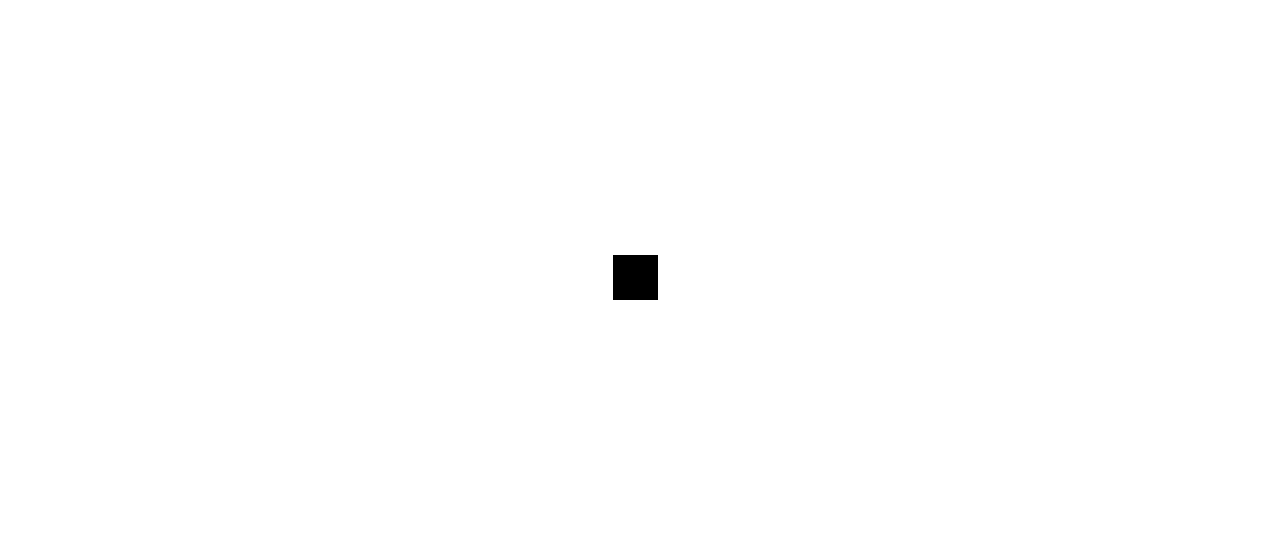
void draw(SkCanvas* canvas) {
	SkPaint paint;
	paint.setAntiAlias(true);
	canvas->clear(0xffffffff);
	paint.setColor(0xff000000);
	canvas->drawRect(SkRect::MakeXYWH(613, 255, 45, 45), paint);
}
